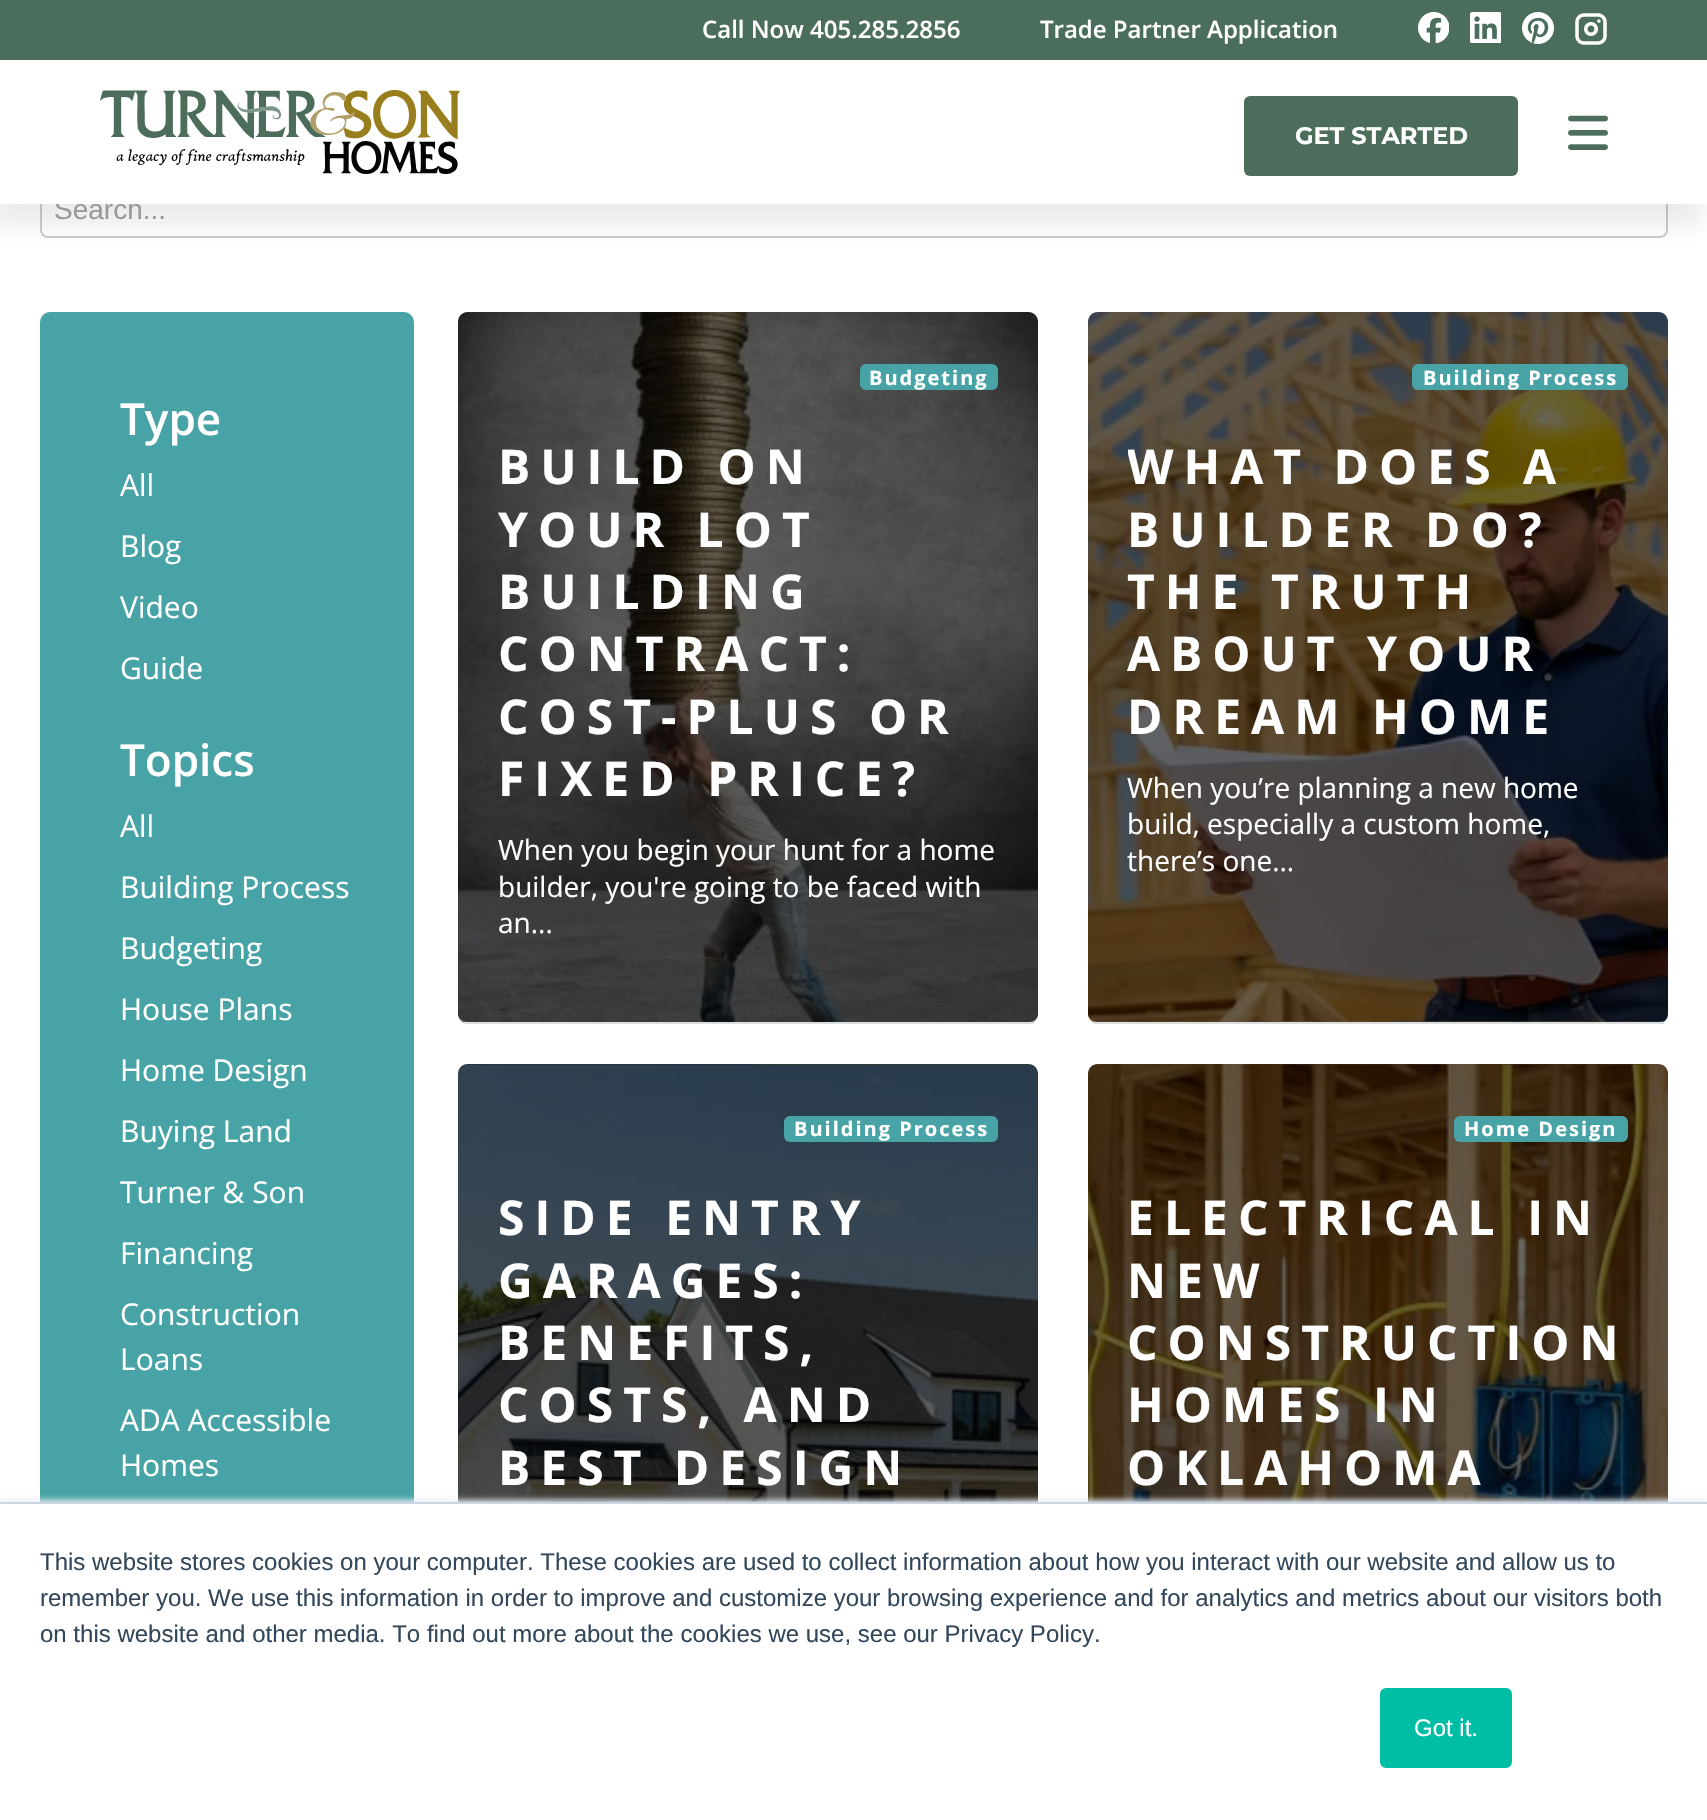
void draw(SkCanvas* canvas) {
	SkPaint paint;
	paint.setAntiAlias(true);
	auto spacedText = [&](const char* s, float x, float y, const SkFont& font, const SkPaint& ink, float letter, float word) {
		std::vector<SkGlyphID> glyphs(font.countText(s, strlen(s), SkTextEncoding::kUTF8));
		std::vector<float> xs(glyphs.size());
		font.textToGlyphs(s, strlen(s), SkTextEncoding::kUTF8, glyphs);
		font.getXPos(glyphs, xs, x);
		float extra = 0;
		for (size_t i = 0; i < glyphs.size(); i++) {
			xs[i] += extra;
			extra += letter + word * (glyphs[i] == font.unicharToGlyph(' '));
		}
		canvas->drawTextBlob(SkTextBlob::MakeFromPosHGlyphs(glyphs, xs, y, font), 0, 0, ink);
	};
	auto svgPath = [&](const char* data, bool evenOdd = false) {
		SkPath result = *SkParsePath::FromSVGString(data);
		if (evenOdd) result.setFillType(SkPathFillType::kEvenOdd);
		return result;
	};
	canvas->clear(0xffffffff);
	paint.setStroke(true);
	paint.setStrokeWidth(2);
	paint.setColor(0xffcccccc);
	canvas->drawRoundRect(SkRect::MakeXYWH(41, 179, 1626, 58), 7, 7, paint);
	paint.setStroke(false);
	paint.setColor(0x171f211c);
	paint.setMaskFilter(SkMaskFilter::MakeBlur(kNormal_SkBlurStyle, 11));
	canvas->drawRect(SkRect::MakeXYWH(-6, 22, 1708, 204), paint);
	paint.setMaskFilter(nullptr);
	paint.setColor(0xff4b6d5c);
	canvas->drawRect(SkRect::MakeXYWH(0, 0, 1707, 60), paint);
	SkFont f1(fontMgr->matchFamilyStyle("Open Sans", SkFontStyle(600, SkFontStyle::kNormal_Width, SkFontStyle::kUpright_Slant)), 24);
	f1.setSubpixel(true);
	paint.setColor(0xffffffff);
	canvas->drawString("Call Now 405.285.2856", 702, 38, f1, paint);
	canvas->drawString("Trade Partner Application", 1040, 38, f1, paint);
	canvas->drawImageRect(SkImages::DeferredFromEncodedData(SkData::MakeFromFileName("img1.png")), SkRect::MakeXYWH(1418, 12, 31, 31), SkSamplingOptions());
	canvas->drawImageRect(SkImages::DeferredFromEncodedData(SkData::MakeFromFileName("img2.png")), SkRect::MakeXYWH(1470, 12, 31, 31), SkSamplingOptions());
	canvas->drawImageRect(SkImages::DeferredFromEncodedData(SkData::MakeFromFileName("img3.png")), SkRect::MakeXYWH(1522, 12, 32, 32), SkSamplingOptions());
	canvas->drawImageRect(SkImages::DeferredFromEncodedData(SkData::MakeFromFileName("img4.png")), SkRect::MakeXYWH(1575, 13, 32, 32), SkSamplingOptions());
	SkFont f2(fontMgr->matchFamilyStyle("Liberation Sans", SkFontStyle::Normal()), 28);
	f2.setSubpixel(true);
	paint.setColor(0xff999999);
	canvas->drawString("Search...", 54, 219, f2, paint);
	paint.setColor(0xffffffff);
	canvas->drawRect(SkRect::MakeXYWH(0, 60, 1707, 144), paint);
	canvas->drawImageRect(SkImages::DeferredFromEncodedData(SkData::MakeFromFileName("img5.png")), SkRect::MakeXYWH(100, 90, 360, 84), SkSamplingOptions());
	paint.setColor(0xff4c6d5c);
	canvas->drawRoundRect(SkRect::MakeXYWH(1244, 96, 274, 80), 6, 6, paint);
	SkFont f3(fontMgr->matchFamilyStyle("Montserrat", SkFontStyle::Bold()), 24);
	f3.setSubpixel(true);
	paint.setColor(0xffffffff);
	canvas->drawString("GET STARTED", 1295, 144, f3, paint);
	canvas->drawImageRect(SkImages::DeferredFromEncodedData(SkData::MakeFromFileName("img6.png")), SkRect::MakeXYWH(1568, 115, 40, 35), SkSamplingOptions());
	paint.setColor(0xff47a3a5);
	canvas->drawRoundRect(SkRect::MakeXYWH(40, 312, 374, 1274), 10, 10, paint);
	SkFont f4(fontMgr->matchFamilyStyle("Open Sans", SkFontStyle(600, SkFontStyle::kNormal_Width, SkFontStyle::kUpright_Slant)), 44);
	f4.setSubpixel(true);
	paint.setColor(0xffffffff);
	canvas->drawString("Type", 120, 435, f4, paint);
	SkFont f5(fontMgr->matchFamilyStyle("Open Sans", SkFontStyle::Normal()), 30);
	f5.setSubpixel(true);
	canvas->drawString("All", 120, 496, f5, paint);
	canvas->drawString("Blog", 120, 557, f5, paint);
	canvas->drawString("Video", 120, 618, f5, paint);
	canvas->drawString("Guide", 120, 679, f5, paint);
	canvas->drawString("Topics", 120, 776, f4, paint);
	canvas->drawString("All", 120, 837, f5, paint);
	canvas->drawString("Building Process", 120, 898, f5, paint);
	canvas->drawString("Budgeting", 120, 959, f5, paint);
	canvas->drawString("House Plans", 120, 1020, f5, paint);
	canvas->drawString("Home Design", 120, 1081, f5, paint);
	canvas->drawString("Buying Land", 120, 1142, f5, paint);
	canvas->drawString("Turner & Son", 120, 1203, f5, paint);
	canvas->drawString("Financing", 120, 1264, f5, paint);
	canvas->drawString("Construction", 120, 1325, f5, paint);
	canvas->drawString("Loans", 120, 1370, f5, paint);
	canvas->drawString("ADA Accessible", 120, 1431, f5, paint);
	canvas->drawString("Homes", 120, 1476, f5, paint);
	canvas->drawImageRect(SkImages::DeferredFromEncodedData(SkData::MakeFromFileName("img7.png")), SkRect::MakeXYWH(458, 312, 580, 711), SkSamplingOptions());
	paint.setColor(0xffdddddd);
	canvas->drawRect(SkRect::MakeXYWH(464, 1022, 570, 2), paint);
	paint.setColor(0x99000000);
	canvas->drawPath(svgPath("M468 312C462 312 458 316 458 322V1014C458 1018 462 1022 468 1022H1028C1034 1022 1038 1018 1038 1014V322C1038 316 1034 312 1028 312Z"), paint);
	paint.setColor(0xff47a3a5);
	canvas->drawRoundRect(SkRect::MakeXYWH(860, 364, 138, 26), 6, 6, paint);
	SkFont f6(fontMgr->matchFamilyStyle("Open Sans", SkFontStyle::Bold()), 20);
	f6.setSubpixel(true);
	paint.setColor(0xffffffff);
	spacedText("Budgeting", 869, 385, f6, paint, 2, 0);
	SkFont f7(fontMgr->matchFamilyStyle("Open Sans", SkFontStyle::Bold()), 48);
	f7.setSubpixel(true);
	spacedText("BUILD ON", 498, 484, f7, paint, 10, 0);
	spacedText("YOUR LOT", 498, 547, f7, paint, 10, 0);
	spacedText("BUILDING", 498, 609, f7, paint, 10, 0);
	spacedText("CONTRACT:", 498, 671, f7, paint, 10, 0);
	spacedText("COST-PLUS OR", 498, 734, f7, paint, 10, 0);
	spacedText("FIXED PRICE?", 498, 796, f7, paint, 10, 0);
	SkFont f8(fontMgr->matchFamilyStyle("Open Sans", SkFontStyle::Normal()), 28);
	f8.setSubpixel(true);
	canvas->drawString("When you begin your hunt for a home", 498, 860, f8, paint);
	canvas->drawString("builder, you're going to be faced with", 498, 897, f8, paint);
	canvas->drawString("an...", 498, 933, f8, paint);
	canvas->drawImageRect(SkImages::DeferredFromEncodedData(SkData::MakeFromFileName("img8.png")), SkRect::MakeXYWH(1088, 312, 580, 711), SkSamplingOptions());
	paint.setColor(0xffdddddd);
	canvas->drawRect(SkRect::MakeXYWH(1094, 1022, 570, 2), paint);
	paint.setColor(0x99000000);
	canvas->drawPath(svgPath("M1098 312C1092 312 1088 316 1088 322V1014C1088 1018 1092 1022 1098 1022H1658C1664 1022 1668 1018 1668 1014V322C1668 316 1664 312 1658 312Z"), paint);
	paint.setColor(0xff47a3a5);
	canvas->drawRoundRect(SkRect::MakeXYWH(1412, 364, 216, 26), 6, 6, paint);
	paint.setColor(0xffffffff);
	spacedText("Building Process", 1423, 385, f6, paint, 2, 0);
	canvas->save();
	canvas->clipPath(svgPath("M1138 352H1618C1623.5 352 1628 356.5 1628 362V870C1628 875.5 1623.5 880 1618 880H1138C1132.5 880 1128 875.5 1128 870V362C1128 356.5 1132.5 352 1138 352Z"), true);
	spacedText("WHAT DOES A", 1127, 484, f7, paint, 10, 0);
	canvas->restore();
	spacedText("BUILDER DO?", 1127, 547, f7, paint, 10, 0);
	spacedText("THE TRUTH", 1127, 609, f7, paint, 10, 0);
	spacedText("ABOUT YOUR", 1127, 671, f7, paint, 10, 0);
	spacedText("DREAM HOME", 1127, 734, f7, paint, 10, 0);
	canvas->drawString("When you’re planning a new home", 1127, 798, f8, paint);
	canvas->drawString("build, especially a custom home,", 1127, 834, f8, paint);
	canvas->drawString("there’s one...", 1127, 871, f8, paint);
	canvas->drawImageRect(SkImages::DeferredFromEncodedData(SkData::MakeFromFileName("img9.png")), SkRect::MakeXYWH(458, 1064, 580, 438), SkSamplingOptions());
	paint.setColor(0x99000000);
	canvas->drawPath(svgPath("M468 1064C462 1064 458 1068 458 1074V1764C458 1768 462 1772 468 1772H1028C1034 1772 1038 1768 1038 1764V1074C1038 1068 1034 1064 1028 1064Z"), paint);
	paint.setColor(0xff47a3a5);
	canvas->drawRoundRect(SkRect::MakeXYWH(784, 1116, 214, 26), 6, 6, paint);
	paint.setColor(0xffffffff);
	spacedText("Building Process", 794, 1136, f6, paint, 2, 0);
	spacedText("SIDE ENTRY", 498, 1235, f7, paint, 10, 0);
	spacedText("GARAGES:", 498, 1298, f7, paint, 10, 0);
	spacedText("BENEFITS,", 498, 1360, f7, paint, 10, 0);
	spacedText("COSTS, AND", 498, 1422, f7, paint, 10, 0);
	spacedText("BEST DESIGN", 498, 1485, f7, paint, 10, 0);
	canvas->drawImageRect(SkImages::DeferredFromEncodedData(SkData::MakeFromFileName("img10.png")), SkRect::MakeXYWH(1088, 1064, 580, 438), SkSamplingOptions());
	paint.setColor(0x99000000);
	canvas->drawPath(svgPath("M1098 1064C1092 1064 1088 1068 1088 1074V1764C1088 1768 1092 1772 1098 1772H1658C1664 1772 1668 1768 1668 1764V1074C1668 1068 1664 1064 1658 1064Z"), paint);
	paint.setColor(0xff47a3a5);
	canvas->drawRoundRect(SkRect::MakeXYWH(1454, 1116, 174, 26), 6, 6, paint);
	paint.setColor(0xffffffff);
	spacedText("Home Design", 1464, 1136, f6, paint, 2, 0);
	spacedText("ELECTRICAL IN", 1127, 1235, f7, paint, 10, 0);
	spacedText("NEW", 1127, 1298, f7, paint, 10, 0);
	spacedText("CONSTRUCTION", 1127, 1360, f7, paint, 10, 0);
	spacedText("HOMES IN", 1127, 1422, f7, paint, 10, 0);
	spacedText("OKLAHOMA", 1127, 1485, f7, paint, 10, 0);
	paint.setColor(0xffeaf0f6);
	paint.setMaskFilter(SkMaskFilter::MakeBlur(kNormal_SkBlurStyle, 3));
	canvas->drawRect(SkRect::MakeXYWH(0, 1500, 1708, 318), paint);
	paint.setMaskFilter(nullptr);
	paint.setColor(0xffffffff);
	canvas->drawRect(SkRect::MakeXYWH(0, 1504, 1707, 316), paint);
	paint.setColor(0xffcbd6e2);
	canvas->drawRect(SkRect::MakeXYWH(0, 1502, 1707, 2), paint);
	SkFont f9(fontMgr->matchFamilyStyle("Liberation Sans", SkFontStyle::Normal()), 24);
	f9.setSubpixel(true);
	paint.setColor(0xff33475b);
	canvas->drawString("This website stores cookies on your computer. These cookies are used to collect information about how you interact with our website and allow us to", 40, 1570, f9, paint);
	canvas->drawString("remember you. We use this information in order to improve and customize your browsing experience and for analytics and metrics about our visitors both", 40, 1606, f9, paint);
	canvas->drawString("on this website and other media. To find out more about the cookies we use, see our Privacy Policy.", 40, 1642, f9, paint);
	paint.setColor(0xff00bda5);
	canvas->drawRoundRect(SkRect::MakeXYWH(1381, 1689, 130, 78), 5, 5, paint);
	paint.setStroke(true);
	canvas->drawRoundRect(SkRect::MakeXYWH(1381, 1689, 130, 78), 5, 5, paint);
	paint.setStroke(false);
	paint.setColor(0xffffffff);
	canvas->drawString("Got it.", 1414, 1736, f9, paint);
}
